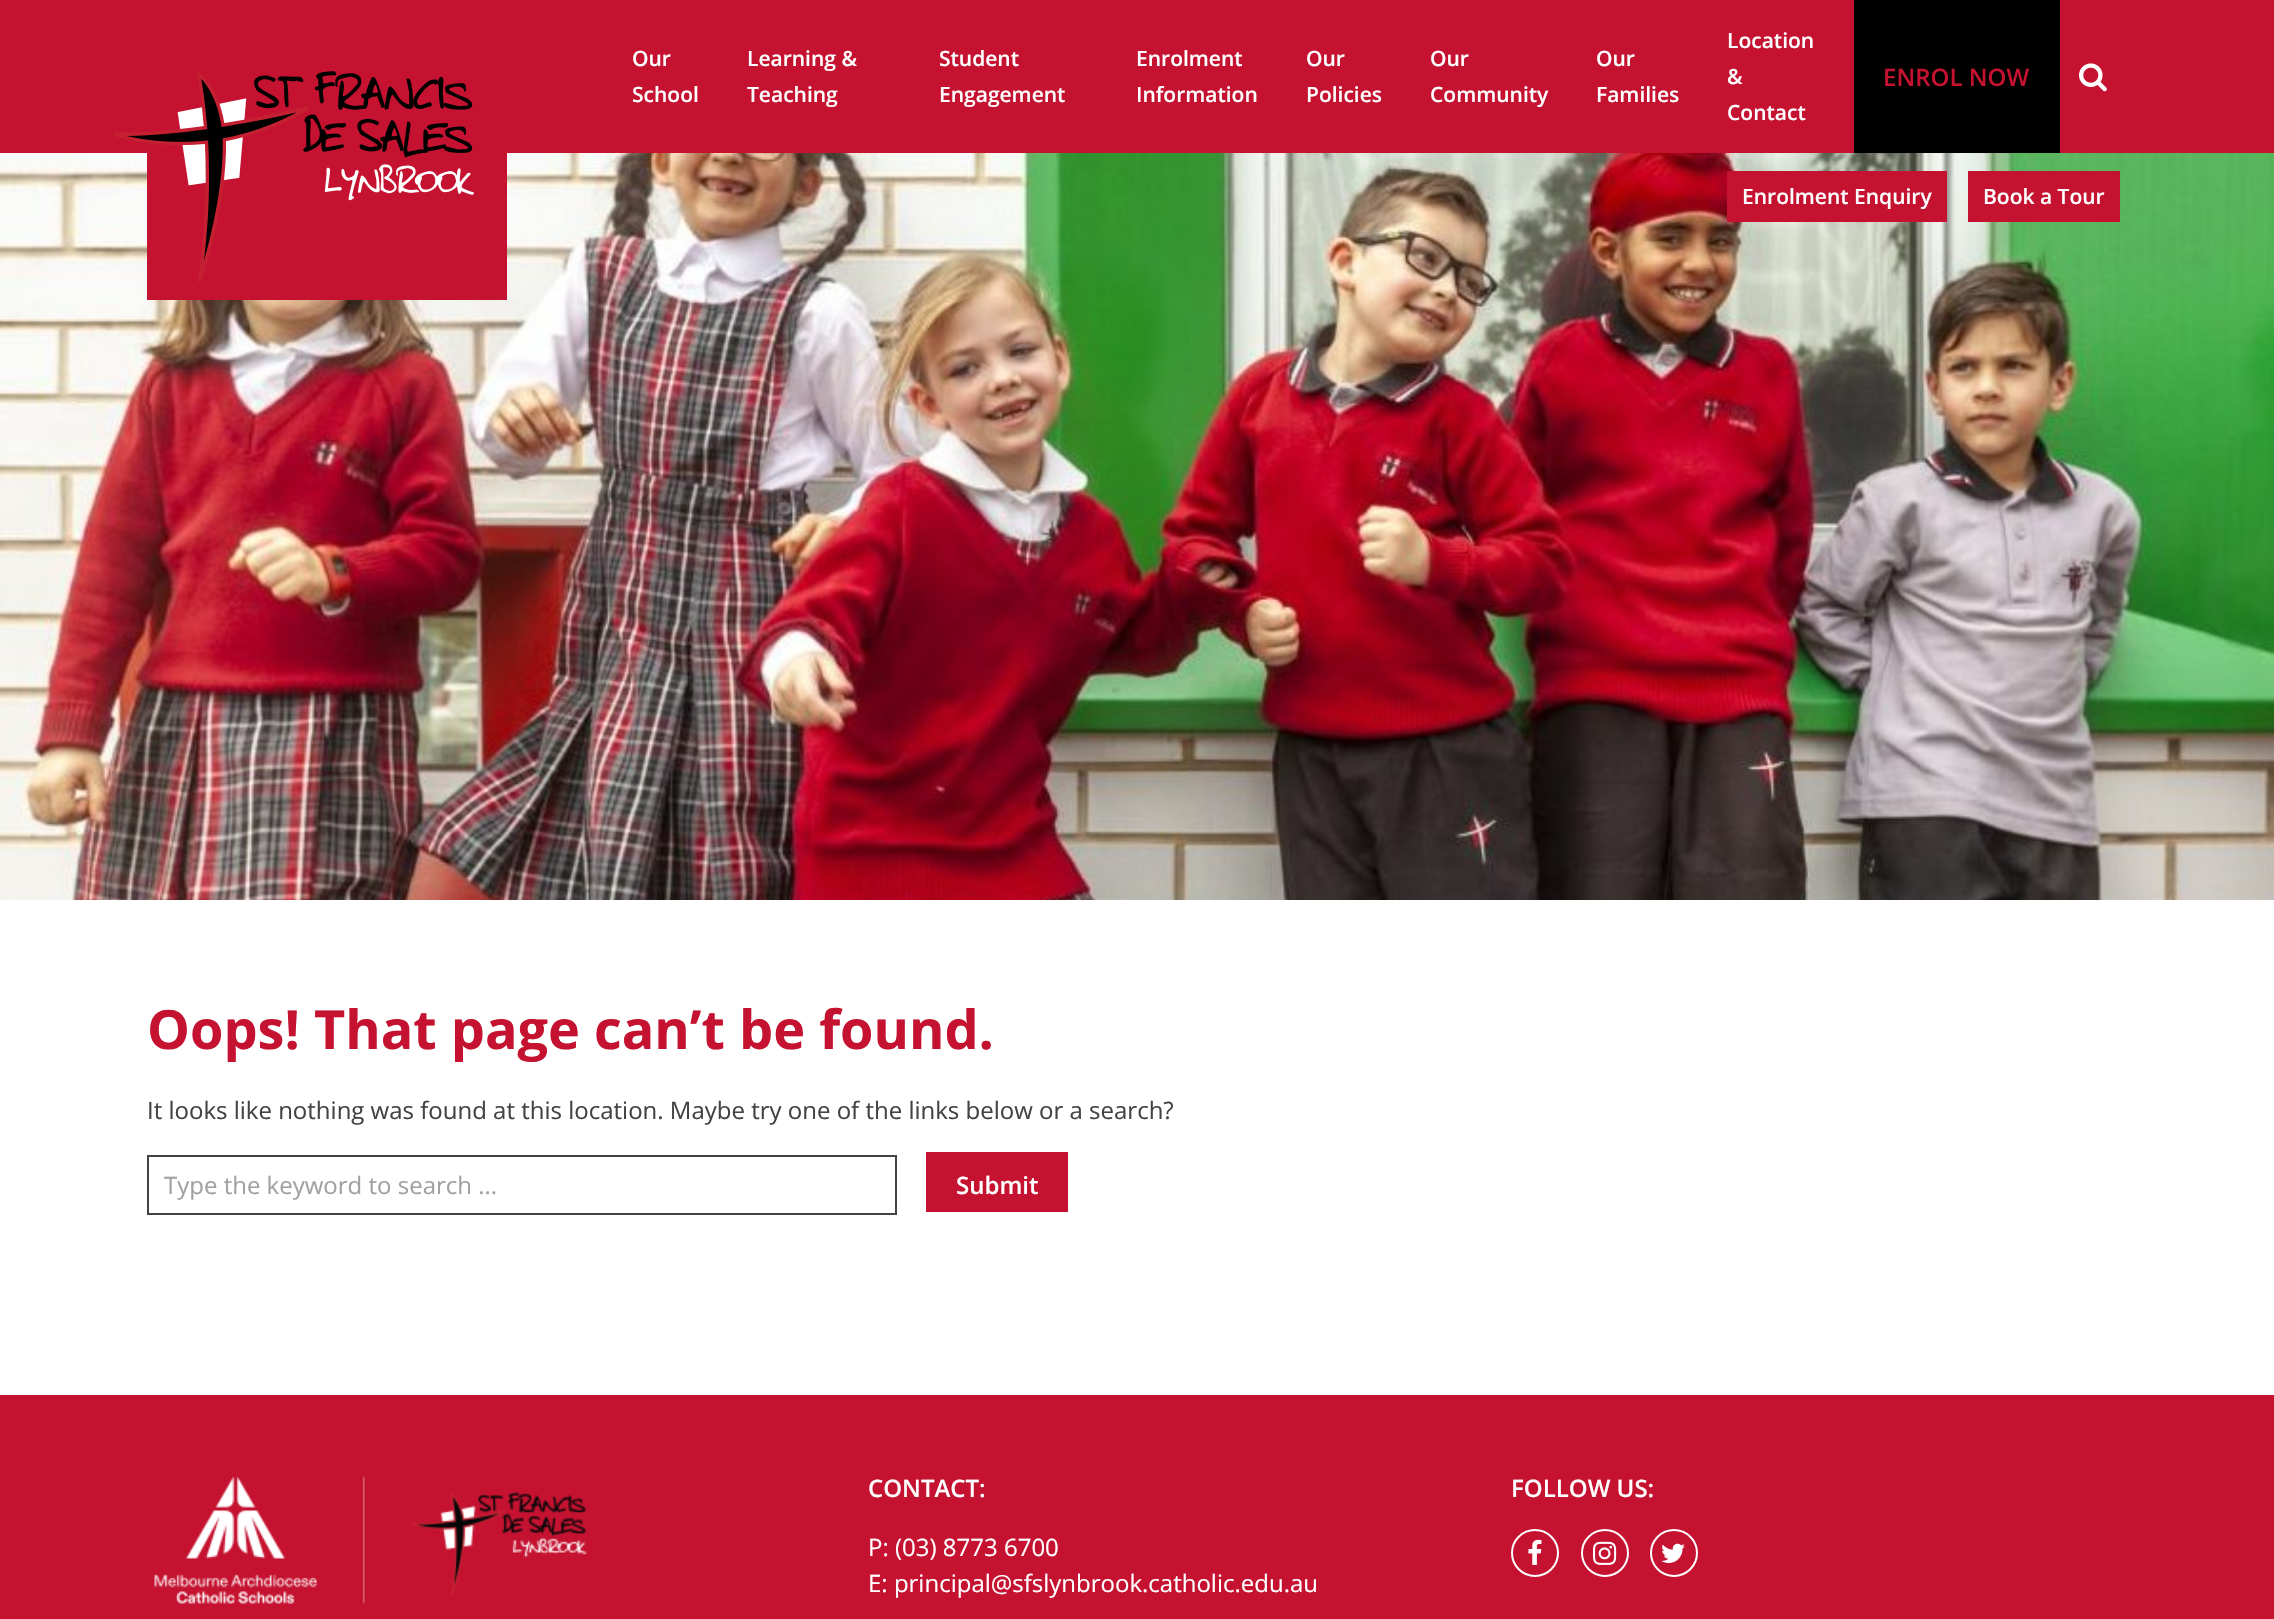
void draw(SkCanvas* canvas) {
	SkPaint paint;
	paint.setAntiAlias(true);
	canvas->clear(0xffffffff);
	paint.setColor(0xffc41230);
	canvas->drawRect(SkRect::MakeXYWH(0, 0, 2274, 153), paint);
	canvas->drawImageRect(SkImages::DeferredFromEncodedData(SkData::MakeFromFileName("img3.png")), SkRect::MakeXYWH(0, 153, 2274, 747), SkSamplingOptions());
	canvas->drawRect(SkRect::MakeXYWH(147, 153, 360, 147), paint);
	canvas->drawImageRect(SkImages::DeferredFromEncodedData(SkData::MakeFromFileName("img1.png")), SkRect::MakeXYWH(114, 70, 360, 212), SkSamplingOptions());
	SkFont f1(fontMgr->matchFamilyStyle("Open Sans", SkFontStyle(600, SkFontStyle::kNormal_Width, SkFontStyle::kUpright_Slant)), 21);
	f1.setSubpixel(true);
	paint.setColor(0xffffffff);
	canvas->drawString("Our", 632, 66, f1, paint);
	canvas->drawString("School", 632, 102, f1, paint);
	canvas->drawString("Learning &", 747, 66, f1, paint);
	canvas->drawString("Teaching", 747, 102, f1, paint);
	canvas->drawString("Student", 939, 66, f1, paint);
	canvas->drawString("Engagement", 939, 102, f1, paint);
	canvas->drawString("Enrolment", 1136, 66, f1, paint);
	canvas->drawString("Information", 1136, 102, f1, paint);
	canvas->drawString("Our", 1306, 66, f1, paint);
	canvas->drawString("Policies", 1306, 102, f1, paint);
	canvas->drawString("Our", 1430, 66, f1, paint);
	canvas->drawString("Community", 1430, 102, f1, paint);
	canvas->drawString("Our", 1596, 66, f1, paint);
	canvas->drawString("Families", 1596, 102, f1, paint);
	canvas->drawString("Location", 1727, 48, f1, paint);
	canvas->drawString("&", 1727, 84, f1, paint);
	canvas->drawString("Contact", 1727, 120, f1, paint);
	paint.setColor(0xff000000);
	canvas->drawRect(SkRect::MakeXYWH(1854, 0, 206, 153), paint);
	SkFont f2(fontMgr->matchFamilyStyle("Open Sans", SkFontStyle(600, SkFontStyle::kNormal_Width, SkFontStyle::kUpright_Slant)), 24);
	f2.setSubpixel(true);
	paint.setColor(0xffc41230);
	canvas->drawString("ENROL NOW", 1883, 86, f2, paint);
	canvas->drawImageRect(SkImages::DeferredFromEncodedData(SkData::MakeFromFileName("img2.png")), SkRect::MakeXYWH(2079, 63, 28, 29), SkSamplingOptions());
	canvas->drawRect(SkRect::MakeXYWH(1727, 171, 220, 51), paint);
	paint.setColor(0xffffffff);
	canvas->drawString("Enrolment Enquiry", 1742, 204, f1, paint);
	paint.setColor(0xffc41230);
	canvas->drawRect(SkRect::MakeXYWH(1968, 171, 152, 51), paint);
	paint.setColor(0xffffffff);
	canvas->drawString("Book a Tour", 1983, 204, f1, paint);
	SkFont f3(fontMgr->matchFamilyStyle("Open Sans", SkFontStyle::Bold()), 54);
	f3.setSubpixel(true);
	paint.setColor(0xffc41230);
	canvas->drawString("Oops! That page can’t be found.", 147, 1049, f3, paint);
	SkFont f4(fontMgr->matchFamilyStyle("Open Sans", SkFontStyle::Normal()), 24);
	f4.setSubpixel(true);
	paint.setColor(0xff434343);
	canvas->drawString("It looks like nothing was found at this location. Maybe try one of the links below or a search?", 147, 1119, f4, paint);
	paint.setStroke(true);
	paint.setStrokeWidth(2);
	canvas->drawRect(SkRect::MakeXYWH(148, 1156, 748, 58), paint);
	paint.setStroke(false);
	paint.setColor(0xffa1a1a1);
	canvas->drawString("Type the keyword to search ...", 164, 1194, f4, paint);
	paint.setColor(0xffc41230);
	canvas->drawRect(SkRect::MakeXYWH(926, 1152, 142, 60), paint);
	paint.setColor(0xffffffff);
	canvas->drawString("Submit", 956, 1194, f2, paint);
	paint.setColor(0xffc41230);
	canvas->drawRect(SkRect::MakeXYWH(0, 1395, 2274, 224), paint);
	canvas->drawImageRect(SkImages::DeferredFromEncodedData(SkData::MakeFromFileName("img4.png")), SkRect::MakeXYWH(154, 1476, 433, 128), SkSamplingOptions());
	paint.setColor(0xffffffff);
	canvas->drawString("CONTACT:", 868, 1497, f2, paint);
	canvas->drawString("P: (03) 8773 6700", 868, 1556, f4, paint);
	canvas->drawString("E: principal@sfslynbrook.catholic.edu.au", 868, 1592, f4, paint);
	canvas->drawString("FOLLOW US:", 1511, 1497, f2, paint);
	paint.setStroke(true);
	canvas->drawCircle(1535, 1553, 23, paint);
	canvas->drawImageRect(SkImages::DeferredFromEncodedData(SkData::MakeFromFileName("img5.png")), SkRect::MakeXYWH(1528, 1539, 14, 26), SkSamplingOptions());
	canvas->drawCircle(1605, 1553, 23, paint);
	canvas->drawImageRect(SkImages::DeferredFromEncodedData(SkData::MakeFromFileName("img6.png")), SkRect::MakeXYWH(1593, 1541, 24, 24), SkSamplingOptions());
	canvas->drawCircle(1674, 1553, 23, paint);
	canvas->drawImageRect(SkImages::DeferredFromEncodedData(SkData::MakeFromFileName("img7.png")), SkRect::MakeXYWH(1661, 1543, 24, 20), SkSamplingOptions());
}
